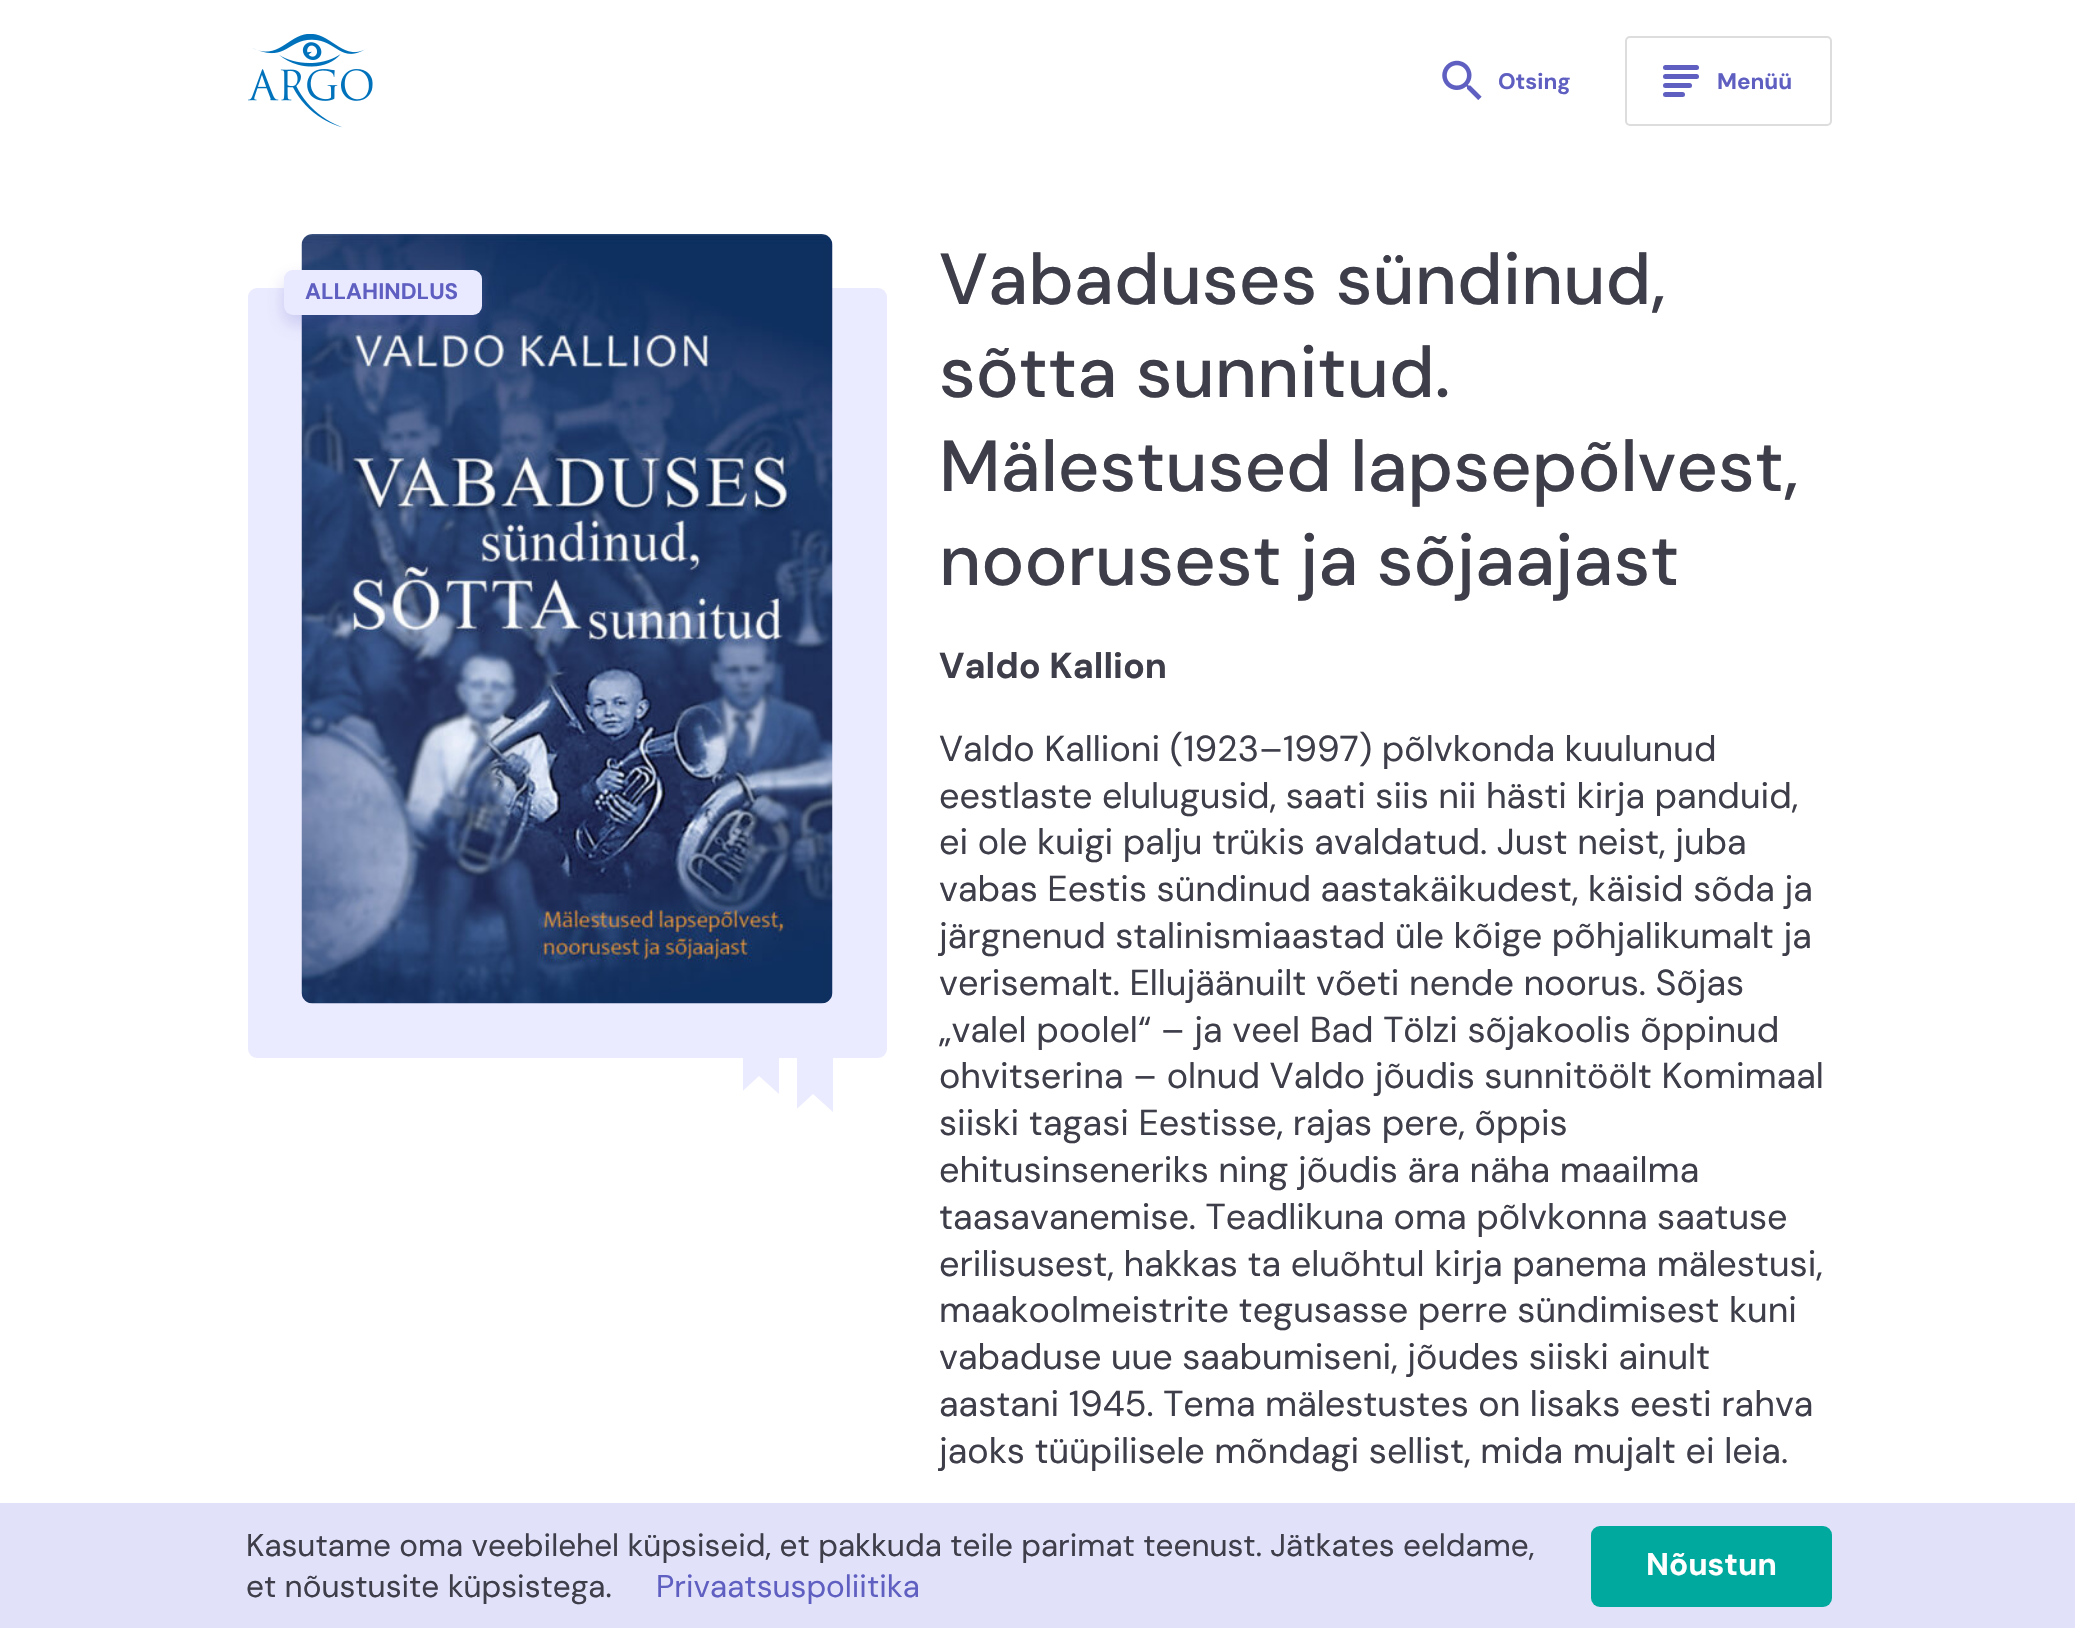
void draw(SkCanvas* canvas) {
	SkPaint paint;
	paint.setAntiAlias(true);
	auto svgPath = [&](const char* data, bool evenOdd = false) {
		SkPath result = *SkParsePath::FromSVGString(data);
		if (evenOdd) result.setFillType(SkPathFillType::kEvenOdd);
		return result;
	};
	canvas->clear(0xffffffff);
	canvas->drawImageRect(SkImages::DeferredFromEncodedData(SkData::MakeFromFileName("img1.png")), SkRect::MakeXYWH(248, 34, 125, 94), SkSamplingOptions());
	canvas->drawImageRect(SkImages::DeferredFromEncodedData(SkData::MakeFromFileName("img2.png")), SkRect::MakeXYWH(1442, 60, 40, 40), SkSamplingOptions());
	SkFont f1(fontMgr->matchFamilyStyle("DM Sans", SkFontStyle::Bold()), 22.5);
	f1.setSubpixel(true);
	paint.setColor(0xff5f5fc2);
	canvas->drawString("Otsing", 1498, 89, f1, paint);
	paint.setStroke(true);
	paint.setStrokeWidth(2);
	paint.setColor(0xffdddddd);
	canvas->drawRoundRect(SkRect::MakeXYWH(1626, 37, 205, 88), 4, 4, paint);
	paint.setStroke(false);
	paint.setColor(0xff5f5fc2);
	canvas->drawRoundRect(SkRect::MakeXYWH(1663, 65, 36, 5), 2.5, 2.5, paint);
	canvas->drawRoundRect(SkRect::MakeXYWH(1663, 74, 36, 5), 2.5, 2.5, paint);
	canvas->drawRoundRect(SkRect::MakeXYWH(1663, 83, 29, 5), 2.5, 2.5, paint);
	canvas->drawRoundRect(SkRect::MakeXYWH(1663, 92, 22, 5), 2.5, 2.5, paint);
	canvas->drawString("Menüü", 1717, 89, f1, paint);
	paint.setColor(0xffebebff);
	canvas->drawRoundRect(SkRect::MakeXYWH(248, 288, 639, 770), 9, 9, paint);
	canvas->drawImageRect(SkImages::DeferredFromEncodedData(SkData::MakeFromFileName("img3.png")), SkRect::MakeXYWH(301, 234, 532, 770), SkSamplingOptions());
	canvas->save();
	canvas->clipRect(SkRect::MakeXYWH(743, 1058, 36, 54));
	canvas->drawPath(svgPath("M720 968H799V1112L759 1076L720 1112Z"), paint);
	canvas->restore();
	canvas->save();
	canvas->clipRect(SkRect::MakeXYWH(797, 1058, 36, 72));
	canvas->drawPath(svgPath("M774 986H853V1130L813 1094L774 1130Z"), paint);
	canvas->restore();
	paint.setColor(0x405f5fc2);
	paint.setMaskFilter(SkMaskFilter::MakeBlur(kNormal_SkBlurStyle, 9));
	canvas->drawRoundRect(SkRect::MakeXYWH(284, 279, 198, 45), 9, 9, paint);
	paint.setMaskFilter(nullptr);
	paint.setColor(0xffe9e9ff);
	canvas->drawRoundRect(SkRect::MakeXYWH(284, 270, 198, 45), 9, 9, paint);
	paint.setColor(0xff5f5fc2);
	canvas->drawString("ALLAHINDLUS", 305, 299, f1, paint);
	SkFont f2(fontMgr->matchFamilyStyle("DM Sans", SkFontStyle(500, SkFontStyle::kNormal_Width, SkFontStyle::kUpright_Slant)), 72);
	f2.setSubpixel(true);
	paint.setColor(0xff3e3e4a);
	canvas->drawString("Vabaduses sündinud,", 939, 304, f2, paint);
	canvas->drawString("sõtta sunnitud.", 939, 397, f2, paint);
	canvas->drawString("Mälestused lapsepõlvest,", 939, 491, f2, paint);
	canvas->drawString("noorusest ja sõjaajast", 939, 585, f2, paint);
	SkFont f3(fontMgr->matchFamilyStyle("DM Sans", SkFontStyle::Bold()), 36);
	f3.setSubpixel(true);
	canvas->drawString("Valdo Kallion", 939, 678, f3, paint);
	SkFont f4(fontMgr->matchFamilyStyle("DM Sans", SkFontStyle::Normal()), 36);
	f4.setSubpixel(true);
	canvas->drawString("Valdo Kallioni (1923–1997) põlvkonda kuulunud", 939, 761, f4, paint);
	canvas->drawString("eestlaste elulugusid, saati siis nii hästi kirja panduid,", 939, 808, f4, paint);
	canvas->drawString("ei ole kuigi palju trükis avaldatud. Just neist, juba", 939, 854, f4, paint);
	canvas->drawString("vabas Eestis sündinud aastakäikudest, käisid sõda ja", 939, 901, f4, paint);
	canvas->drawString("järgnenud stalinismiaastad üle kõige põhjalikumalt ja", 939, 948, f4, paint);
	canvas->drawString("verisemalt. Ellujäänuilt võeti nende noorus. Sõjas", 939, 995, f4, paint);
	canvas->drawString("„valel poolel“ – ja veel Bad Tölzi sõjakoolis õppinud", 939, 1042, f4, paint);
	canvas->drawString("ohvitserina – olnud Valdo jõudis sunnitöölt Komimaal", 939, 1088, f4, paint);
	canvas->drawString("siiski tagasi Eestisse, rajas pere, õppis", 939, 1135, f4, paint);
	canvas->drawString("ehitusinseneriks ning jõudis ära näha maailma", 939, 1182, f4, paint);
	canvas->drawString("taasavanemise. Teadlikuna oma põlvkonna saatuse", 939, 1229, f4, paint);
	canvas->drawString("erilisusest, hakkas ta eluõhtul kirja panema mälestusi,", 939, 1276, f4, paint);
	canvas->drawString("maakoolmeistrite tegusasse perre sündimisest kuni", 939, 1322, f4, paint);
	canvas->drawString("vabaduse uue saabumiseni, jõudes siiski ainult", 939, 1369, f4, paint);
	canvas->drawString("aastani 1945. Tema mälestustes on lisaks eesti rahva", 939, 1416, f4, paint);
	canvas->drawString("jaoks tüüpilisele mõndagi sellist, mida mujalt ei leia.", 939, 1463, f4, paint);
	paint.setColor(0xffe1e1f9);
	canvas->drawRect(SkRect::MakeXYWH(0, 1503, 2075, 125), paint);
	SkFont f5(fontMgr->matchFamilyStyle("DM Sans", SkFontStyle::Normal()), 31.5);
	f5.setSubpixel(true);
	paint.setColor(0xff3e3e4a);
	canvas->drawString("Kasutame oma veebilehel küpsiseid, et pakkuda teile parimat teenust. Jätkates eeldame,", 246, 1556, f5, paint);
	canvas->drawString("et nõustusite küpsistega.", 246, 1597, f5, paint);
	paint.setColor(0xff5f5fc2);
	canvas->drawString("Privaatsuspoliitika", 656, 1597, f5, paint);
	paint.setColor(0xff00a99d);
	canvas->drawRoundRect(SkRect::MakeXYWH(1591, 1526, 241, 81), 9, 9, paint);
	SkFont f6(fontMgr->matchFamilyStyle("DM Sans", SkFontStyle::Bold()), 31.5);
	f6.setSubpixel(true);
	paint.setColor(0xffffffff);
	canvas->drawString("Nõustun", 1646, 1575, f6, paint);
}
